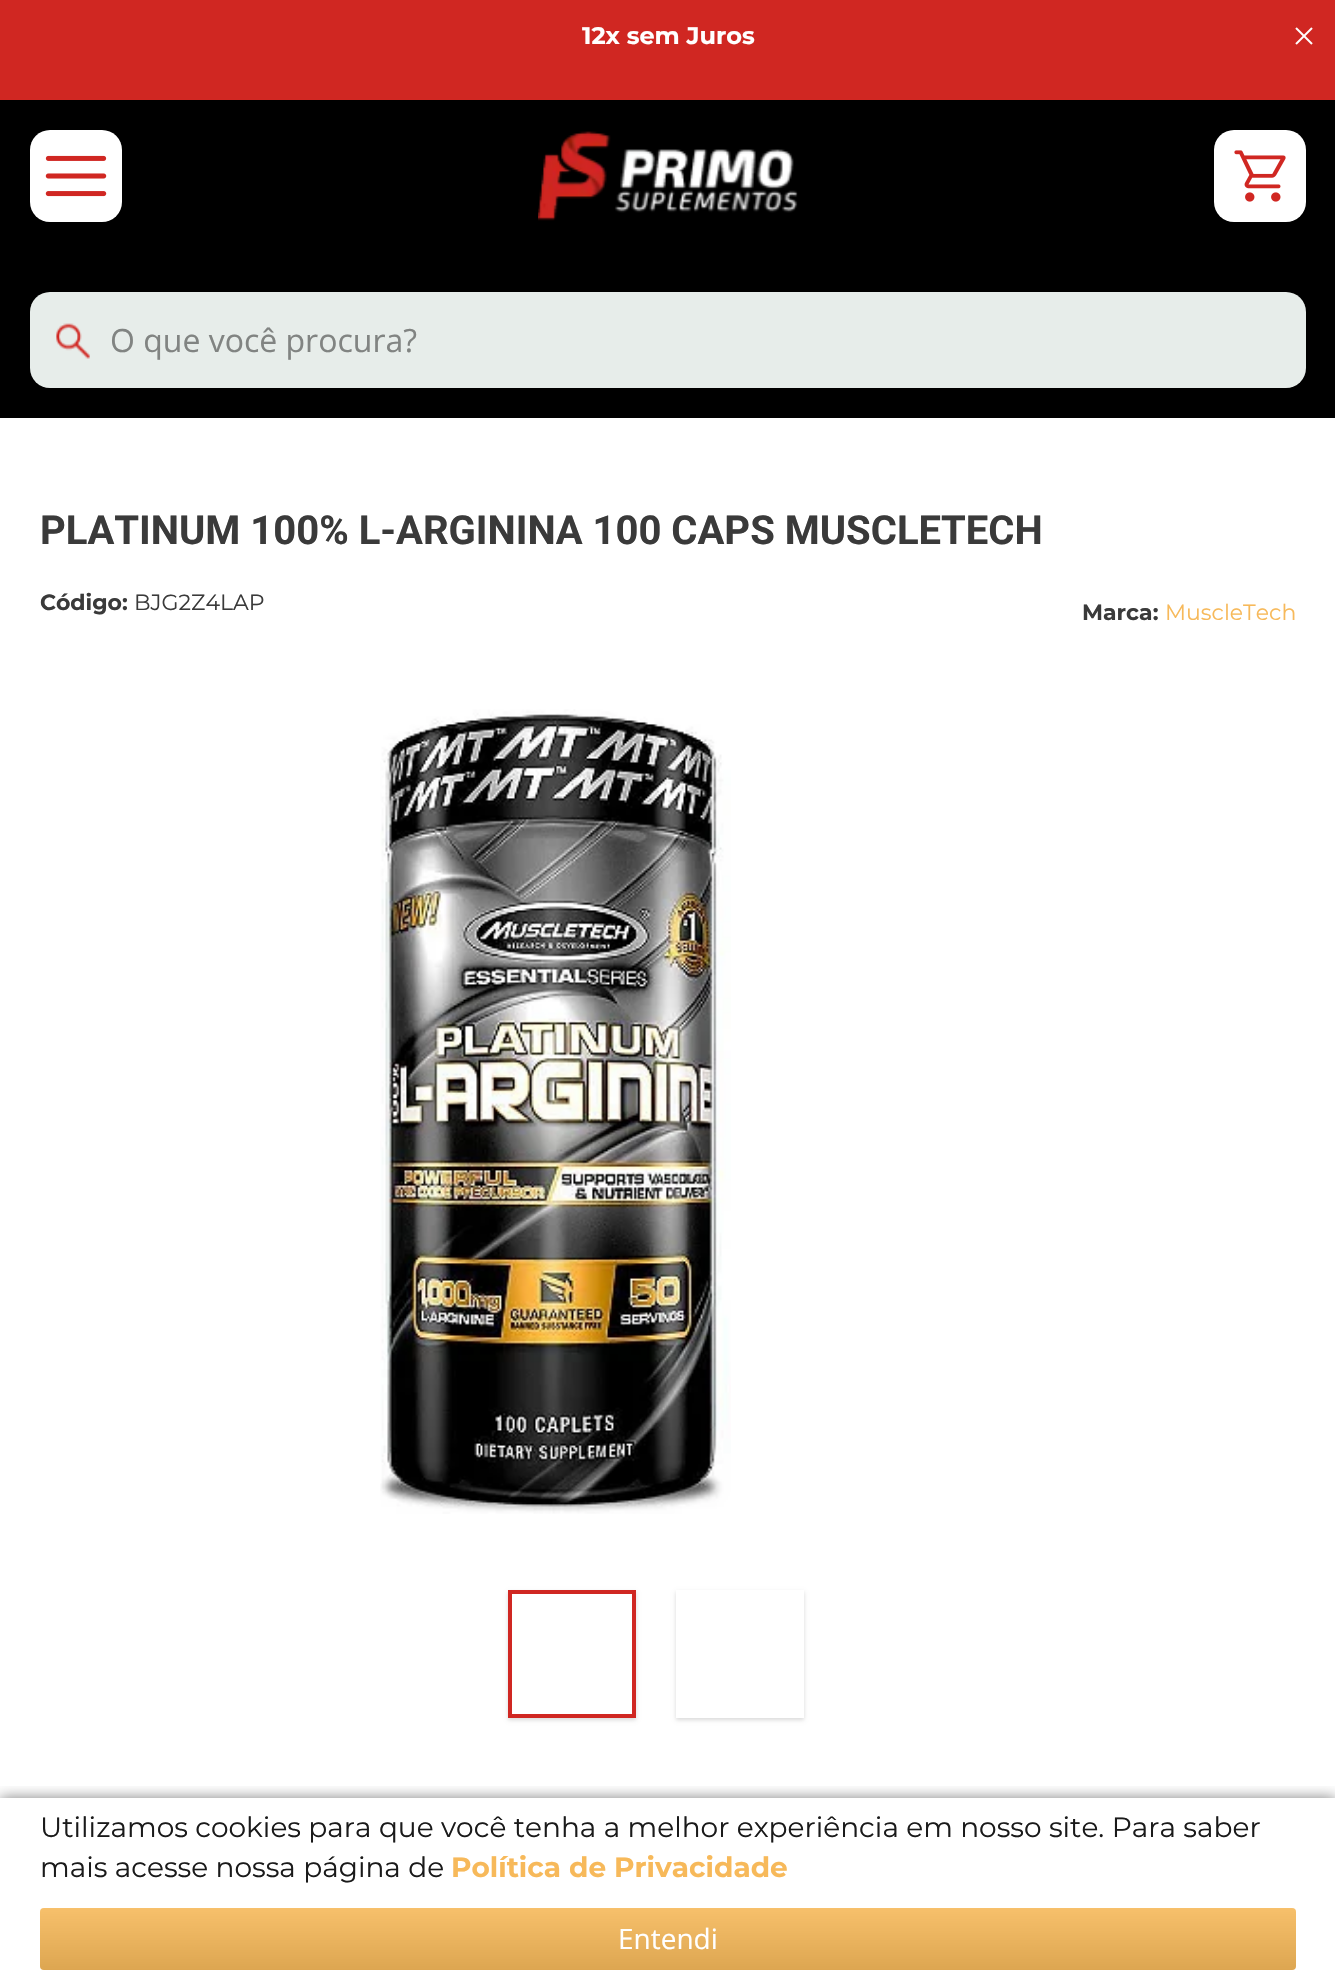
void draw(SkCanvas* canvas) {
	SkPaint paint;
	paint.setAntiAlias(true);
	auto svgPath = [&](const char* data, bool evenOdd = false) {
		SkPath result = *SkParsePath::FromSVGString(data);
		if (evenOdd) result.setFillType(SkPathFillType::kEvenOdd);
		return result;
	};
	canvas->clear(0xffffffff);
	paint.setColor(0xffd02722);
	canvas->drawRect(SkRect::MakeXYWH(0, 0, 1335, 100), paint);
	SkFont f1(fontMgr->matchFamilyStyle("Montserrat", SkFontStyle::Bold()), 24);
	f1.setSubpixel(true);
	paint.setColor(0xffffffff);
	canvas->drawString("12x sem Juros", 582, 44, f1, paint);
	canvas->drawImageRect(SkImages::DeferredFromEncodedData(SkData::MakeFromFileName("img1.png")), SkRect::MakeXYWH(1295, 27, 18, 18), SkSamplingOptions());
	paint.setColor(0xff000000);
	canvas->drawRect(SkRect::MakeXYWH(0, 100, 1335, 318), paint);
	paint.setColor(0xffffffff);
	canvas->drawRoundRect(SkRect::MakeXYWH(30, 130, 92, 92), 20, 20, paint);
	canvas->drawImageRect(SkImages::DeferredFromEncodedData(SkData::MakeFromFileName("img2.png")), SkRect::MakeXYWH(45, 155, 62, 42), SkSamplingOptions());
	canvas->drawImageRect(SkImages::DeferredFromEncodedData(SkData::MakeFromFileName("img3.png")), SkRect::MakeXYWH(538, 131, 260, 90), SkSamplingOptions());
	canvas->drawRoundRect(SkRect::MakeXYWH(1214, 130, 92, 92), 20, 20, paint);
	canvas->drawImageRect(SkImages::DeferredFromEncodedData(SkData::MakeFromFileName("img4.png")), SkRect::MakeXYWH(1234, 150, 52, 52), SkSamplingOptions());
	paint.setColor(0xffe7edea);
	canvas->drawRoundRect(SkRect::MakeXYWH(30, 292, 1276, 96), 20, 20, paint);
	canvas->drawImageRect(SkImages::DeferredFromEncodedData(SkData::MakeFromFileName("img5.png")), SkRect::MakeXYWH(56, 323, 34, 36), SkSamplingOptions());
	SkFont f2(fontMgr->matchFamilyStyle("Open Sans", SkFontStyle::Normal()), 32);
	f2.setSubpixel(true);
	paint.setColor(0xff818482);
	canvas->drawString("O que você procura?", 110, 352, f2, paint);
	SkFont f3(fontMgr->matchFamilyStyle("Roboto", SkFontStyle::Bold()), 40);
	f3.setSubpixel(true);
	paint.setColor(0xff3a3a3a);
	canvas->drawString("PLATINUM 100% L-ARGININA 100 CAPS MUSCLETECH", 40, 544, f3, paint);
	SkFont f4(fontMgr->matchFamilyStyle("Montserrat", SkFontStyle::Bold()), 22);
	f4.setSubpixel(true);
	canvas->drawString("Código:", 40, 610, f4, paint);
	SkFont f5(fontMgr->matchFamilyStyle("Montserrat", SkFontStyle::Normal()), 22);
	f5.setSubpixel(true);
	canvas->drawString("BJG2Z4LAP", 134, 610, f5, paint);
	canvas->drawString("Marca:", 1082, 620, f4, paint);
	paint.setColor(0xfff7b95a);
	canvas->drawString("MuscleTech", 1165, 620, f5, paint);
	canvas->drawImageRect(SkImages::DeferredFromEncodedData(SkData::MakeFromFileName("img6.png")), SkRect::MakeXYWH(380, 709, 351, 805), SkSamplingOptions());
	canvas->save();
	canvas->clipPath(svgPath("M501 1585H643V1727H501ZM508 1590H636V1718H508Z", true), true);
	paint.setColor(0x26000000);
	paint.setMaskFilter(SkMaskFilter::MakeBlur(kNormal_SkBlurStyle, 2));
	canvas->drawRect(SkRect::MakeXYWH(508, 1592, 128, 128), paint);
	paint.setMaskFilter(nullptr);
	canvas->restore();
	paint.setStroke(true);
	paint.setStrokeWidth(4);
	paint.setColor(0xffd02722);
	canvas->drawRect(SkRect::MakeXYWH(510, 1592, 124, 124), paint);
	canvas->save();
	canvas->clipPath(svgPath("M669 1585H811V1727H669ZM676 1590H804V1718H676Z", true), true);
	paint.setStroke(false);
	paint.setColor(0x26000000);
	paint.setMaskFilter(SkMaskFilter::MakeBlur(kNormal_SkBlurStyle, 2));
	canvas->drawRect(SkRect::MakeXYWH(676, 1592, 128, 128), paint);
	paint.setMaskFilter(nullptr);
	canvas->restore();
	canvas->save();
	canvas->clipRect(SkRect::MakeXYWH(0, 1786, 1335, 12));
	paint.setColor(0x80000000);
	paint.setMaskFilter(SkMaskFilter::MakeBlur(kNormal_SkBlurStyle, 7));
	canvas->drawRect(SkRect::MakeXYWH(0, 1798, 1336, 180), paint);
	paint.setMaskFilter(nullptr);
	canvas->restore();
	SkFont f6(fontMgr->matchFamilyStyle("Montserrat", SkFontStyle::Normal()), 28);
	f6.setSubpixel(true);
	paint.setColor(0xff1a1a1a);
	canvas->drawString("Utilizamos cookies para que você tenha a melhor experiência em nosso site. Para saber", 40, 1837, f6, paint);
	canvas->drawString("mais acesse nossa página de", 40, 1877, f6, paint);
	SkFont f7(fontMgr->matchFamilyStyle("Montserrat", SkFontStyle::Bold()), 28);
	f7.setSubpixel(true);
	paint.setColor(0xfff7b95a);
	canvas->drawString("Política de Privacidade", 451, 1877, f7, paint);
	canvas->drawRoundRect(SkRect::MakeXYWH(40, 1908, 1256, 62), 4, 4, paint);
	{
		const SkColor colors[] = {0x1affffff, 0x1a000000};
		const float stops[] = {0, 1};
		const SkPoint ends[] = {{668, 1908}, {668, 1970}};
		paint.setShader(SkGradientShader::MakeLinear(ends, colors, stops, 2, SkTileMode::kClamp));
		paint.setAlpha(255);
	}
	canvas->drawRoundRect(SkRect::MakeXYWH(40, 1908, 1256, 62), 4, 4, paint);
	SkFont f8(fontMgr->matchFamilyStyle("Open Sans", SkFontStyle::Normal()), 28);
	f8.setSubpixel(true);
	paint.setShader(nullptr);
	paint.setColor(0xffffffff);
	canvas->drawString("Entendi", 618, 1949, f8, paint);
}
